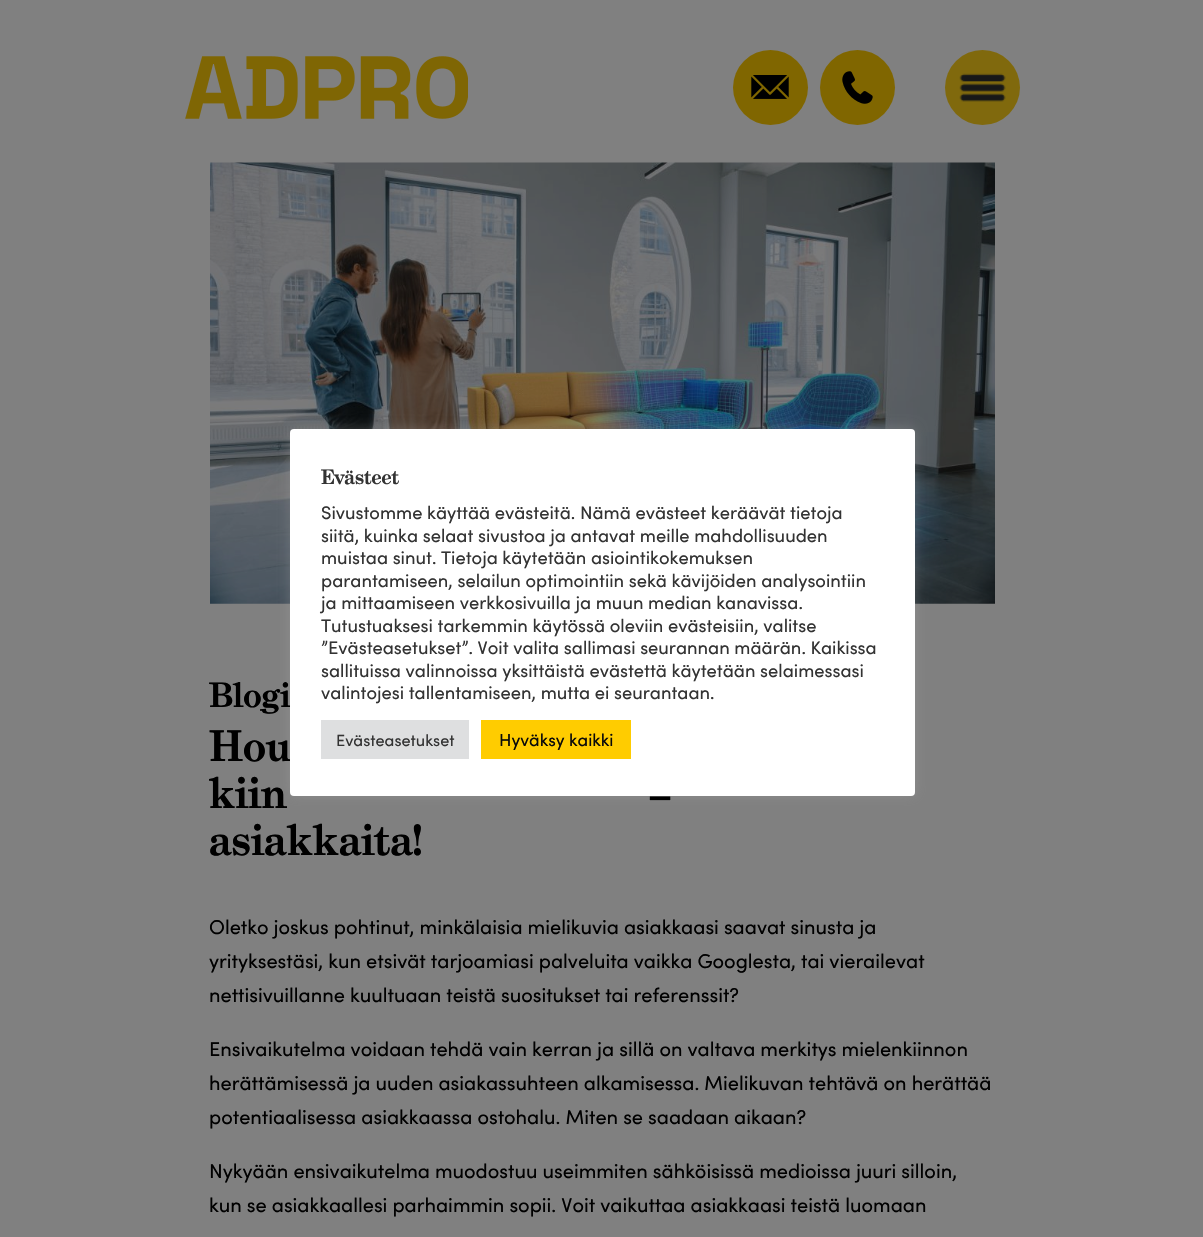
void draw(SkCanvas* canvas) {
	SkPaint paint;
	paint.setAntiAlias(true);
	canvas->clear(0xff808080);
	canvas->drawImageRect(SkImages::DeferredFromEncodedData(SkData::MakeFromFileName("img1.png")), SkRect::MakeXYWH(185, 56, 283, 63), SkSamplingOptions());
	paint.setColor(0xff806600);
	canvas->drawCircle(770.5, 87.5, 37.5, paint);
	canvas->drawImageRect(SkImages::DeferredFromEncodedData(SkData::MakeFromFileName("img2.png")), SkRect::MakeXYWH(751, 75, 38, 24), SkSamplingOptions());
	canvas->drawCircle(857.5, 87.5, 37.5, paint);
	canvas->drawImageRect(SkImages::DeferredFromEncodedData(SkData::MakeFromFileName("img3.png")), SkRect::MakeXYWH(842, 71, 31, 33), SkSamplingOptions());
	paint.setColor(0xff80690d);
	canvas->drawCircle(982.5, 87.5, 37.5, paint);
	canvas->drawImageRect(SkImages::DeferredFromEncodedData(SkData::MakeFromFileName("img4.png")), SkRect::MakeXYWH(959, 73, 47, 29), SkSamplingOptions());
	canvas->drawImageRect(SkImages::DeferredFromEncodedData(SkData::MakeFromFileName("img5.png")), SkRect::MakeXYWH(210, 162, 785, 442), SkSamplingOptions());
	paint.setColor(0x4dacabab);
	paint.setMaskFilter(SkMaskFilter::MakeBlur(kNormal_SkBlurStyle, 6));
	canvas->drawRoundRect(SkRect::MakeXYWH(290, 428, 625, 367), 4, 4, paint);
	paint.setMaskFilter(nullptr);
	SkFont f1(fontMgr->matchFamilyStyle("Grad", SkFontStyle::Bold()), 34);
	f1.setSubpixel(true);
	paint.setColor(0xff000000);
	canvas->drawString("Blogi", 209, 707, f1, paint);
	SkFont f2(fontMgr->matchFamilyStyle("Grad", SkFontStyle::Bold()), 42.5);
	f2.setSubpixel(true);
	canvas->drawString("Hou", 209, 761, f2, paint);
	paint.setColor(0xffffffff);
	canvas->drawRoundRect(SkRect::MakeXYWH(290, 429, 625, 367), 4, 4, paint);
	SkFont f3(fontMgr->matchFamilyStyle("Grad", SkFontStyle::Bold()), 20);
	f3.setSubpixel(true);
	paint.setColor(0xff333333);
	canvas->drawString("Evästeet", 321, 484, f3, paint);
	SkFont f4(fontMgr->matchFamilyStyle("Sofia", SkFontStyle::Normal()), 18.3);
	f4.setSubpixel(true);
	canvas->drawString("Sivustomme käyttää evästeitä. Nämä evästeet keräävät tietoja", 321, 519, f4, paint);
	canvas->drawString("siitä, kuinka selaat sivustoa ja antavat meille mahdollisuuden", 321, 542, f4, paint);
	canvas->drawString("muistaa sinut. Tietoja käytetään asiointikokemuksen", 321, 564, f4, paint);
	canvas->drawString("parantamiseen, selailun optimointiin sekä kävijöiden analysointiin", 321, 587, f4, paint);
	canvas->drawString("ja mittaamiseen verkkosivuilla ja muun median kanavissa.", 321, 609, f4, paint);
	canvas->drawString("Tutustuaksesi tarkemmin käytössä oleviin evästeisiin, valitse", 321, 632, f4, paint);
	canvas->drawString("”Evästeasetukset”. Voit valita sallimasi seurannan määrän. Kaikissa", 321, 654, f4, paint);
	canvas->drawString("sallituissa valinnoissa yksittäistä evästettä käytetään selaimessasi", 321, 677, f4, paint);
	canvas->drawString("valintojesi tallentamiseen, mutta ei seurantaan.", 321, 699, f4, paint);
	paint.setColor(0xffdedfe0);
	canvas->drawRect(SkRect::MakeXYWH(321, 720, 148, 39), paint);
	SkFont f5(fontMgr->matchFamilyStyle("Sofia", SkFontStyle::Normal()), 16.25);
	f5.setSubpixel(true);
	paint.setColor(0xff333333);
	canvas->drawString("Evästeasetukset", 336, 746, f5, paint);
	paint.setColor(0xffffcc00);
	canvas->drawRect(SkRect::MakeXYWH(481, 720, 150, 39), paint);
	SkFont f6(fontMgr->matchFamilyStyle("Sofia", SkFontStyle::Normal()), 17.5);
	f6.setSubpixel(true);
	paint.setColor(0xff0a0a0a);
	canvas->drawString("Hyväksy kaikki", 499, 746, f6, paint);
	paint.setColor(0xff000000);
	canvas->drawString("kiin", 209, 808, f2, paint);
	canvas->drawString("–", 649, 808, f2, paint);
	canvas->drawString("asiakkaita!", 209, 855, f2, paint);
	SkFont f7(fontMgr->matchFamilyStyle("Sofia", SkFontStyle::Normal()), 20);
	f7.setSubpixel(true);
	canvas->drawString("Oletko joskus pohtinut, minkälaisia mielikuvia asiakkaasi saavat sinusta ja", 209, 934, f7, paint);
	canvas->drawString("yrityksestäsi, kun etsivät tarjoamiasi palveluita vaikka Googlesta, tai vierailevat", 209, 968, f7, paint);
	canvas->drawString("nettisivuillanne kuultuaan teistä suositukset tai referenssit?", 209, 1002, f7, paint);
	canvas->drawString("Ensivaikutelma voidaan tehdä vain kerran ja sillä on valtava merkitys mielenkiinnon", 209, 1056, f7, paint);
	canvas->drawString("herättämisessä ja uuden asiakassuhteen alkamisessa. Mielikuvan tehtävä on herättää", 209, 1090, f7, paint);
	canvas->drawString("potentiaalisessa asiakkaassa ostohalu. Miten se saadaan aikaan?", 209, 1124, f7, paint);
	canvas->drawString("Nykyään ensivaikutelma muodostuu useimmiten sähköisissä medioissa juuri silloin,", 209, 1178, f7, paint);
	canvas->drawString("kun se asiakkaallesi parhaimmin sopii. Voit vaikuttaa asiakkaasi teistä luomaan", 209, 1212, f7, paint);
}
